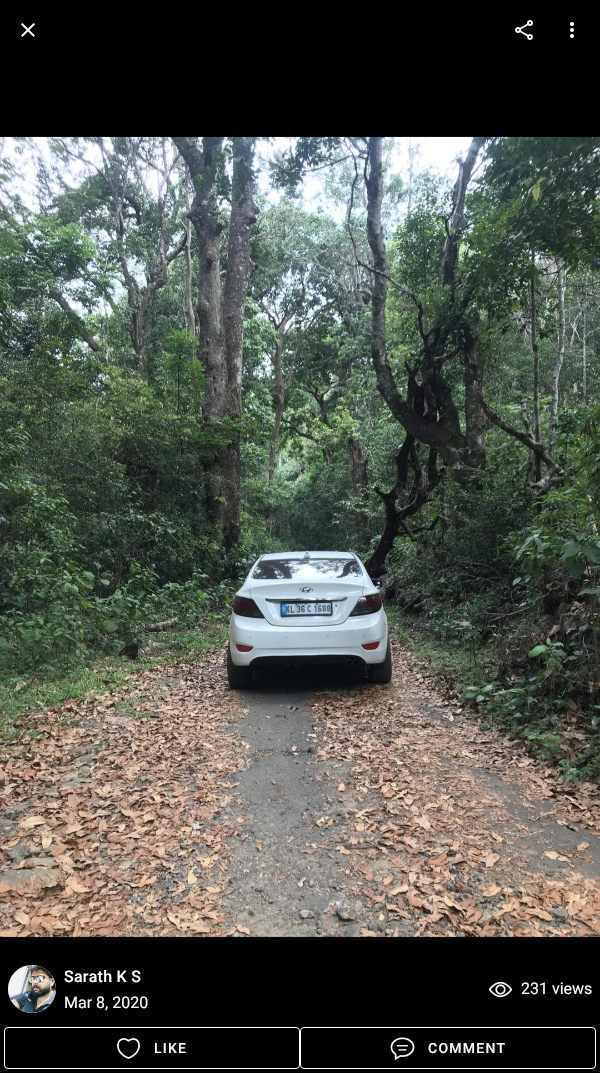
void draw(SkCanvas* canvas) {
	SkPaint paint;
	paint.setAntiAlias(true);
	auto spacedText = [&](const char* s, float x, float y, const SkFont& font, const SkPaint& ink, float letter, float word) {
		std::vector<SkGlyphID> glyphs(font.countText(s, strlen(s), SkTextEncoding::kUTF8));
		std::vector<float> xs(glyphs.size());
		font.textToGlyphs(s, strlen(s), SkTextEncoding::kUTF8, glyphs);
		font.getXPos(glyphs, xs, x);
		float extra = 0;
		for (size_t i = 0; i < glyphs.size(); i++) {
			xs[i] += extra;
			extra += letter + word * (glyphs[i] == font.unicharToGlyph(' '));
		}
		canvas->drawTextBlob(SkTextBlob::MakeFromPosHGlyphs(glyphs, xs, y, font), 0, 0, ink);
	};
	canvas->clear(0xff000000);
	canvas->drawImageRect(SkImages::DeferredFromEncodedData(SkData::MakeFromFileName("img1.png")), SkRect::MakeXYWH(21, 23, 14, 14), SkSamplingOptions());
	canvas->drawImageRect(SkImages::DeferredFromEncodedData(SkData::MakeFromFileName("img2.png")), SkRect::MakeXYWH(515, 20, 18, 20), SkSamplingOptions());
	canvas->drawImageRect(SkImages::DeferredFromEncodedData(SkData::MakeFromFileName("img3.png")), SkRect::MakeXYWH(570, 22, 4, 16), SkSamplingOptions());
	canvas->drawImageRect(SkImages::DeferredFromEncodedData(SkData::MakeFromFileName("img4.png")), SkRect::MakeXYWH(0, 136, 600, 802), SkSamplingOptions());
	paint.setColor(0xffe3e3e3);
	canvas->drawCircle(32, 989, 24, paint);
	canvas->drawImageRect(SkImages::DeferredFromEncodedData(SkData::MakeFromFileName("img5.png")), SkRect::MakeXYWH(8, 965, 48, 48), SkSamplingOptions());
	SkFont f1(fontMgr->matchFamilyStyle("Roboto", SkFontStyle(500, SkFontStyle::kNormal_Width, SkFontStyle::kUpright_Slant)), 16);
	f1.setSubpixel(true);
	paint.setColor(0xffffffff);
	spacedText("Sarath K S", 64, 982, f1, paint, 0.25, 0);
	SkFont f2(fontMgr->matchFamilyStyle("Roboto", SkFontStyle::Normal()), 16);
	f2.setSubpixel(true);
	canvas->drawString("Mar 8, 2020", 64, 1008, f2, paint);
	canvas->drawImageRect(SkImages::DeferredFromEncodedData(SkData::MakeFromFileName("img6.png")), SkRect::MakeXYWH(489, 981, 24, 17), SkSamplingOptions());
	canvas->drawString("231 views", 521, 994, f2, paint);
	paint.setStroke(true);
	paint.setStrokeWidth(1);
	canvas->drawRoundRect(SkRect::MakeXYWH(4.5, 1027.5, 295, 41), 3.5, 3.5, paint);
	canvas->drawImageRect(SkImages::DeferredFromEncodedData(SkData::MakeFromFileName("img7.png")), SkRect::MakeXYWH(117, 1038, 23, 21), SkSamplingOptions());
	SkFont f3(fontMgr->matchFamilyStyle("Roboto", SkFontStyle(500, SkFontStyle::kNormal_Width, SkFontStyle::kUpright_Slant)), 14);
	f3.setSubpixel(true);
	paint.setStroke(false);
	spacedText("LIKE", 154, 1053, f3, paint, 1.25, 0);
	paint.setStroke(true);
	canvas->drawRoundRect(SkRect::MakeXYWH(300.5, 1027.5, 295, 41), 3.5, 3.5, paint);
	canvas->drawImageRect(SkImages::DeferredFromEncodedData(SkData::MakeFromFileName("img8.png")), SkRect::MakeXYWH(390, 1037, 25, 23), SkSamplingOptions());
	paint.setStroke(false);
	spacedText("COMMENT", 428, 1053, f3, paint, 1.25, 0);
}
